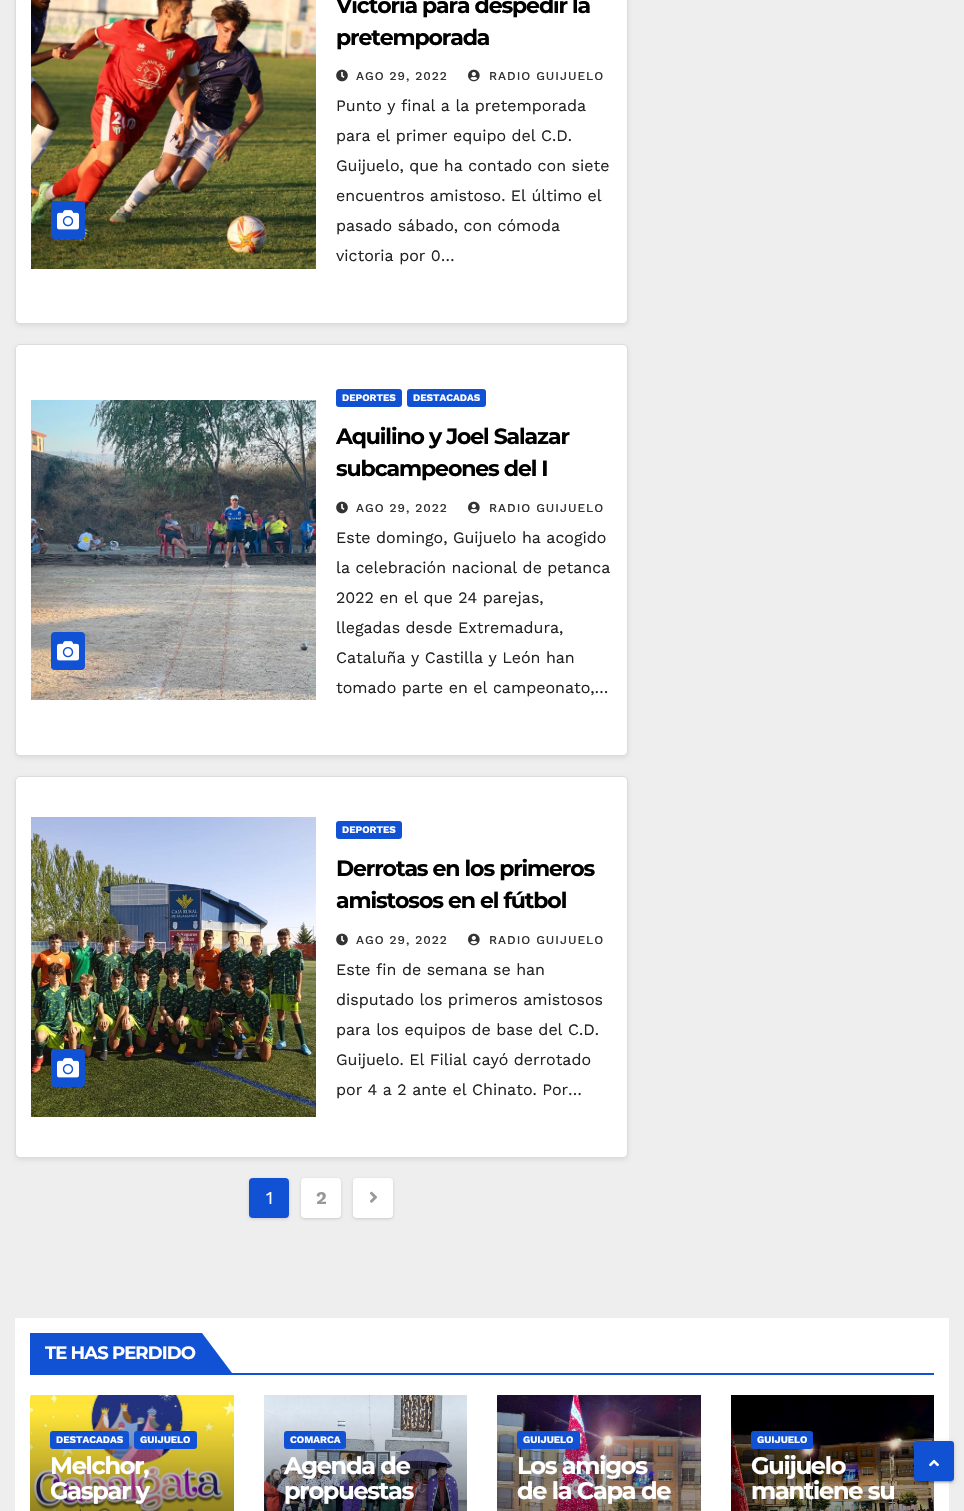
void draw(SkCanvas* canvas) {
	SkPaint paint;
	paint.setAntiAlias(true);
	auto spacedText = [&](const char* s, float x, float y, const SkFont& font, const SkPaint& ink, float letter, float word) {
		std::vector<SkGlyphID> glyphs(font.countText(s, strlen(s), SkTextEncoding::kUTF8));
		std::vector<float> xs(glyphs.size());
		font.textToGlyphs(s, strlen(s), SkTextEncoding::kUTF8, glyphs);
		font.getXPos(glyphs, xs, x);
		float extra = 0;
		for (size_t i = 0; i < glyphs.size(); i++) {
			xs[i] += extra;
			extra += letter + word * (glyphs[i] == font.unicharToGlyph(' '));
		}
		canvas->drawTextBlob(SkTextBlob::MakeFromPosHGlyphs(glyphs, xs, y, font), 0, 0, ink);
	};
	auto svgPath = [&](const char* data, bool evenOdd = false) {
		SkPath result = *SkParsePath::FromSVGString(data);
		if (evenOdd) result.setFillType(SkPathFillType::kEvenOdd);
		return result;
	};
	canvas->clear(0xffeeeeee);
	paint.setColor(0x14000000);
	paint.setMaskFilter(SkMaskFilter::MakeBlur(kNormal_SkBlurStyle, 2));
	canvas->drawRoundRect(SkRect::MakeXYWH(15, -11, 613, 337), 5, 5, paint);
	paint.setMaskFilter(nullptr);
	paint.setColor(0xffffffff);
	canvas->drawRoundRect(SkRect::MakeXYWH(15.5, -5.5, 612, 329), 4.5, 4.5, paint);
	paint.setStroke(true);
	paint.setStrokeWidth(1);
	paint.setColor(0xffdddcdc);
	canvas->drawRoundRect(SkRect::MakeXYWH(15.5, -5.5, 612, 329), 4.5, 4.5, paint);
	canvas->drawImageRect(SkImages::DeferredFromEncodedData(SkData::MakeFromFileName("img1.png")), SkRect::MakeXYWH(31, 0, 285, 269), SkSamplingOptions());
	paint.setStroke(false);
	paint.setColor(0xff1151d3);
	canvas->drawRoundRect(SkRect::MakeXYWH(51, 201, 34, 38), 4, 4, paint);
	canvas->drawImageRect(SkImages::DeferredFromEncodedData(SkData::MakeFromFileName("img2.png")), SkRect::MakeXYWH(57, 210, 22, 20), SkSamplingOptions());
	SkFont f1(fontMgr->matchFamilyStyle("Montserrat", SkFontStyle::Bold()), 22);
	f1.setSubpixel(true);
	paint.setColor(0xff000000);
	spacedText("Victoria para despedir la", 336, 13, f1, paint, -1.1, 0);
	spacedText("pretemporada", 336, 45, f1, paint, -1.1, 0);
	canvas->drawImageRect(SkImages::DeferredFromEncodedData(SkData::MakeFromFileName("img3.png")), SkRect::MakeXYWH(336, 69, 12, 13), SkSamplingOptions());
	SkFont f2(fontMgr->matchFamilyStyle("Work Sans", SkFontStyle(500, SkFontStyle::kNormal_Width, SkFontStyle::kUpright_Slant)), 12);
	f2.setSubpixel(true);
	paint.setColor(0xff333333);
	spacedText("AGO 29, 2022", 356, 80, f2, paint, 1, 0);
	canvas->drawImageRect(SkImages::DeferredFromEncodedData(SkData::MakeFromFileName("img4.png")), SkRect::MakeXYWH(468, 69, 12, 13), SkSamplingOptions());
	spacedText("RADIO GUIJUELO", 489, 80, f2, paint, 1, 0);
	SkFont f3(fontMgr->matchFamilyStyle("Work Sans", SkFontStyle::Normal()), 16);
	f3.setSubpixel(true);
	paint.setColor(0xff222222);
	canvas->drawString("Punto y final a la pretemporada", 336, 111, f3, paint);
	canvas->drawString("para el primer equipo del C.D.", 336, 141, f3, paint);
	canvas->drawString("Guijuelo, que ha contado con siete", 336, 171, f3, paint);
	canvas->drawString("encuentros amistoso. El último el", 336, 201, f3, paint);
	canvas->drawString("pasado sábado, con cómoda", 336, 231, f3, paint);
	canvas->drawString("victoria por 0…", 336, 261, f3, paint);
	paint.setColor(0x14000000);
	paint.setMaskFilter(SkMaskFilter::MakeBlur(kNormal_SkBlurStyle, 2));
	canvas->drawRoundRect(SkRect::MakeXYWH(15, 346, 613, 412), 5, 5, paint);
	paint.setMaskFilter(nullptr);
	paint.setColor(0xffffffff);
	canvas->drawRoundRect(SkRect::MakeXYWH(15.5, 344.5, 612, 411), 4.5, 4.5, paint);
	paint.setStroke(true);
	paint.setColor(0xffdddcdc);
	canvas->drawRoundRect(SkRect::MakeXYWH(15.5, 344.5, 612, 411), 4.5, 4.5, paint);
	canvas->drawImageRect(SkImages::DeferredFromEncodedData(SkData::MakeFromFileName("img5.png")), SkRect::MakeXYWH(31, 400, 285, 300), SkSamplingOptions());
	paint.setStroke(false);
	paint.setColor(0xff1151d3);
	canvas->drawRoundRect(SkRect::MakeXYWH(51, 632, 34, 38), 4, 4, paint);
	canvas->drawImageRect(SkImages::DeferredFromEncodedData(SkData::MakeFromFileName("img2.png")), SkRect::MakeXYWH(57, 641, 22, 20), SkSamplingOptions());
	canvas->drawRoundRect(SkRect::MakeXYWH(336, 389, 66, 18), 3, 3, paint);
	SkFont f4(fontMgr->matchFamilyStyle("Work Sans", SkFontStyle::Bold()), 10);
	f4.setSubpixel(true);
	paint.setColor(0xffffffff);
	canvas->drawString("DEPORTES", 342, 401, f4, paint);
	paint.setColor(0xff1151d3);
	canvas->drawRoundRect(SkRect::MakeXYWH(407, 389, 79, 18), 3, 3, paint);
	paint.setColor(0xffffffff);
	canvas->drawString("DESTACADAS", 413, 401, f4, paint);
	paint.setColor(0xff000000);
	spacedText("Aquilino y Joel Salazar", 336, 444, f1, paint, -1.1, 0);
	spacedText("subcampeones del I", 336, 476, f1, paint, -1.1, 0);
	canvas->drawImageRect(SkImages::DeferredFromEncodedData(SkData::MakeFromFileName("img3.png")), SkRect::MakeXYWH(336, 501, 12, 13), SkSamplingOptions());
	paint.setColor(0xff333333);
	spacedText("AGO 29, 2022", 356, 512, f2, paint, 1, 0);
	canvas->drawImageRect(SkImages::DeferredFromEncodedData(SkData::MakeFromFileName("img4.png")), SkRect::MakeXYWH(468, 501, 12, 13), SkSamplingOptions());
	spacedText("RADIO GUIJUELO", 489, 512, f2, paint, 1, 0);
	paint.setColor(0xff222222);
	canvas->drawString("Este domingo, Guijuelo ha acogido", 336, 543, f3, paint);
	canvas->drawString("la celebración nacional de petanca", 336, 573, f3, paint);
	canvas->drawString("2022 en el que 24 parejas,", 336, 603, f3, paint);
	canvas->drawString("llegadas desde Extremadura,", 336, 633, f3, paint);
	canvas->drawString("Cataluña y Castilla y León han", 336, 663, f3, paint);
	canvas->drawString("tomado parte en el campeonato,…", 336, 693, f3, paint);
	paint.setColor(0x14000000);
	paint.setMaskFilter(SkMaskFilter::MakeBlur(kNormal_SkBlurStyle, 2));
	canvas->drawRoundRect(SkRect::MakeXYWH(15, 778, 613, 382), 5, 5, paint);
	paint.setMaskFilter(nullptr);
	paint.setColor(0xffffffff);
	canvas->drawRoundRect(SkRect::MakeXYWH(15.5, 776.5, 612, 381), 4.5, 4.5, paint);
	paint.setStroke(true);
	paint.setColor(0xffdddcdc);
	canvas->drawRoundRect(SkRect::MakeXYWH(15.5, 776.5, 612, 381), 4.5, 4.5, paint);
	canvas->drawImageRect(SkImages::DeferredFromEncodedData(SkData::MakeFromFileName("img6.png")), SkRect::MakeXYWH(31, 817, 285, 300), SkSamplingOptions());
	paint.setStroke(false);
	paint.setColor(0xff1151d3);
	canvas->drawRoundRect(SkRect::MakeXYWH(51, 1049, 34, 38), 4, 4, paint);
	canvas->drawImageRect(SkImages::DeferredFromEncodedData(SkData::MakeFromFileName("img2.png")), SkRect::MakeXYWH(57, 1058, 22, 20), SkSamplingOptions());
	canvas->drawRoundRect(SkRect::MakeXYWH(336, 821, 66, 18), 3, 3, paint);
	paint.setColor(0xffffffff);
	canvas->drawString("DEPORTES", 342, 833, f4, paint);
	paint.setColor(0xff000000);
	spacedText("Derrotas en los primeros", 336, 876, f1, paint, -1.1, 0);
	spacedText("amistosos en el fútbol", 336, 908, f1, paint, -1.1, 0);
	canvas->drawImageRect(SkImages::DeferredFromEncodedData(SkData::MakeFromFileName("img3.png")), SkRect::MakeXYWH(336, 933, 12, 13), SkSamplingOptions());
	paint.setColor(0xff333333);
	spacedText("AGO 29, 2022", 356, 944, f2, paint, 1, 0);
	canvas->drawImageRect(SkImages::DeferredFromEncodedData(SkData::MakeFromFileName("img4.png")), SkRect::MakeXYWH(468, 933, 12, 13), SkSamplingOptions());
	spacedText("RADIO GUIJUELO", 489, 944, f2, paint, 1, 0);
	paint.setColor(0xff222222);
	canvas->drawString("Este fin de semana se han", 336, 975, f3, paint);
	canvas->drawString("disputado los primeros amistosos", 336, 1005, f3, paint);
	canvas->drawString("para los equipos de base del C.D.", 336, 1035, f3, paint);
	canvas->drawString("Guijuelo. El Filial cayó derrotado", 336, 1065, f3, paint);
	canvas->drawString("por 4 a 2 ante el Chinato. Por…", 336, 1095, f3, paint);
	paint.setColor(0x26000000);
	paint.setMaskFilter(SkMaskFilter::MakeBlur(kNormal_SkBlurStyle, 1.5));
	canvas->drawRoundRect(SkRect::MakeXYWH(249, 1179, 40, 40), 4, 4, paint);
	paint.setMaskFilter(nullptr);
	paint.setColor(0xff1151d3);
	canvas->drawRoundRect(SkRect::MakeXYWH(249, 1178, 40, 40), 4, 4, paint);
	SkFont f5(fontMgr->matchFamilyStyle("Work Sans", SkFontStyle::Normal()), 18);
	f5.setSubpixel(true);
	paint.setColor(0xffffffff);
	canvas->drawString("1", 266, 1204, f5, paint);
	paint.setColor(0x26000000);
	paint.setMaskFilter(SkMaskFilter::MakeBlur(kNormal_SkBlurStyle, 1.5));
	canvas->drawRoundRect(SkRect::MakeXYWH(301, 1179, 40, 40), 4, 4, paint);
	paint.setMaskFilter(nullptr);
	paint.setColor(0xffffffff);
	canvas->drawRoundRect(SkRect::MakeXYWH(301, 1178, 40, 40), 4, 4, paint);
	SkFont f6(fontMgr->matchFamilyStyle("Work Sans", SkFontStyle::Bold()), 18);
	f6.setSubpixel(true);
	paint.setColor(0xff999999);
	canvas->drawString("2", 316, 1204, f6, paint);
	paint.setColor(0x26000000);
	paint.setMaskFilter(SkMaskFilter::MakeBlur(kNormal_SkBlurStyle, 1.5));
	canvas->drawRoundRect(SkRect::MakeXYWH(353, 1179, 40, 40), 4, 4, paint);
	paint.setMaskFilter(nullptr);
	paint.setColor(0xffffffff);
	canvas->drawRoundRect(SkRect::MakeXYWH(353, 1178, 40, 40), 4, 4, paint);
	canvas->drawImageRect(SkImages::DeferredFromEncodedData(SkData::MakeFromFileName("img7.png")), SkRect::MakeXYWH(370, 1191, 7, 12), SkSamplingOptions());
	canvas->drawRect(SkRect::MakeXYWH(15, 1318, 934, 193), paint);
	paint.setColor(0xff1151d3);
	canvas->drawRect(SkRect::MakeXYWH(30, 1373, 904, 2), paint);
	canvas->drawRect(SkRect::MakeXYWH(30, 1333, 172, 40), paint);
	SkFont f7(fontMgr->matchFamilyStyle("Montserrat", SkFontStyle::Bold()), 18);
	f7.setSubpixel(true);
	paint.setColor(0xffffffff);
	spacedText("TE HAS PERDIDO", 45, 1359, f7, paint, -0.9, 0);
	paint.setColor(0xff1151d3);
	canvas->drawPath(svgPath("M202 1373V1333L232 1373Z"), paint);
	canvas->drawImageRect(SkImages::DeferredFromEncodedData(SkData::MakeFromFileName("img8.png")), SkRect::MakeXYWH(30, 1395, 204, 116), SkSamplingOptions());
	canvas->drawRoundRect(SkRect::MakeXYWH(50, 1431, 79, 18), 3, 3, paint);
	paint.setColor(0xffffffff);
	canvas->drawString("DESTACADAS", 56, 1443, f4, paint);
	paint.setColor(0xff1151d3);
	canvas->drawRoundRect(SkRect::MakeXYWH(134, 1431, 63, 18), 3, 3, paint);
	paint.setColor(0xffffffff);
	canvas->drawString("GUIJUELO", 140, 1443, f4, paint);
	SkFont f8(fontMgr->matchFamilyStyle("Montserrat", SkFontStyle::Bold()), 24);
	f8.setSubpixel(true);
	spacedText("Melchor,", 50, 1474, f8, paint, -1.25, 0);
	spacedText("Gaspar y", 50, 1499, f8, paint, -1.25, 0);
	canvas->drawImageRect(SkImages::DeferredFromEncodedData(SkData::MakeFromFileName("img9.png")), SkRect::MakeXYWH(264, 1395, 203, 116), SkSamplingOptions());
	paint.setColor(0xff1151d3);
	canvas->drawRoundRect(SkRect::MakeXYWH(284, 1431, 62, 18), 3, 3, paint);
	paint.setColor(0xffffffff);
	canvas->drawString("COMARCA", 290, 1443, f4, paint);
	spacedText("Agenda de", 284, 1474, f8, paint, -1.25, 0);
	spacedText("propuestas", 284, 1499, f8, paint, -1.25, 0);
	canvas->drawImageRect(SkImages::DeferredFromEncodedData(SkData::MakeFromFileName("img10.png")), SkRect::MakeXYWH(497, 1395, 204, 116), SkSamplingOptions());
	paint.setColor(0xff1151d3);
	canvas->drawRoundRect(SkRect::MakeXYWH(517, 1431, 63, 18), 3, 3, paint);
	paint.setColor(0xffffffff);
	canvas->drawString("GUIJUELO", 523, 1443, f4, paint);
	spacedText("Los amigos", 517, 1474, f8, paint, -1.25, 0);
	spacedText("de la Capa de", 517, 1499, f8, paint, -1.25, 0);
	canvas->drawImageRect(SkImages::DeferredFromEncodedData(SkData::MakeFromFileName("img11.png")), SkRect::MakeXYWH(731, 1395, 203, 116), SkSamplingOptions());
	paint.setColor(0xff1151d3);
	canvas->drawRoundRect(SkRect::MakeXYWH(751, 1431, 62, 18), 3, 3, paint);
	paint.setColor(0xffffffff);
	canvas->drawString("GUIJUELO", 757, 1443, f4, paint);
	spacedText("Guijuelo", 751, 1474, f8, paint, -1.25, 0);
	spacedText("mantiene su", 751, 1499, f8, paint, -1.25, 0);
	paint.setColor(0x1f000000);
	paint.setMaskFilter(SkMaskFilter::MakeBlur(kNormal_SkBlurStyle, 2.5));
	canvas->drawRoundRect(SkRect::MakeXYWH(914, 1442, 40, 40), 3, 3, paint);
	paint.setMaskFilter(nullptr);
	paint.setColor(0x33000000);
	paint.setMaskFilter(SkMaskFilter::MakeBlur(kNormal_SkBlurStyle, 0.5));
	canvas->drawRoundRect(SkRect::MakeXYWH(916, 1446, 36, 36), 1, 1, paint);
	paint.setMaskFilter(nullptr);
	paint.setColor(0x24000000);
	paint.setMaskFilter(SkMaskFilter::MakeBlur(kNormal_SkBlurStyle, 1));
	canvas->drawRoundRect(SkRect::MakeXYWH(914, 1443, 40, 40), 3, 3, paint);
	paint.setMaskFilter(nullptr);
	paint.setColor(0xff1151d3);
	canvas->drawRoundRect(SkRect::MakeXYWH(915, 1442, 38, 38), 2, 2, paint);
	paint.setStroke(true);
	paint.setStrokeWidth(2);
	canvas->drawRoundRect(SkRect::MakeXYWH(915, 1442, 38, 38), 2, 2, paint);
	canvas->drawImageRect(SkImages::DeferredFromEncodedData(SkData::MakeFromFileName("img12.png")), SkRect::MakeXYWH(929, 1459, 10, 8), SkSamplingOptions());
}
